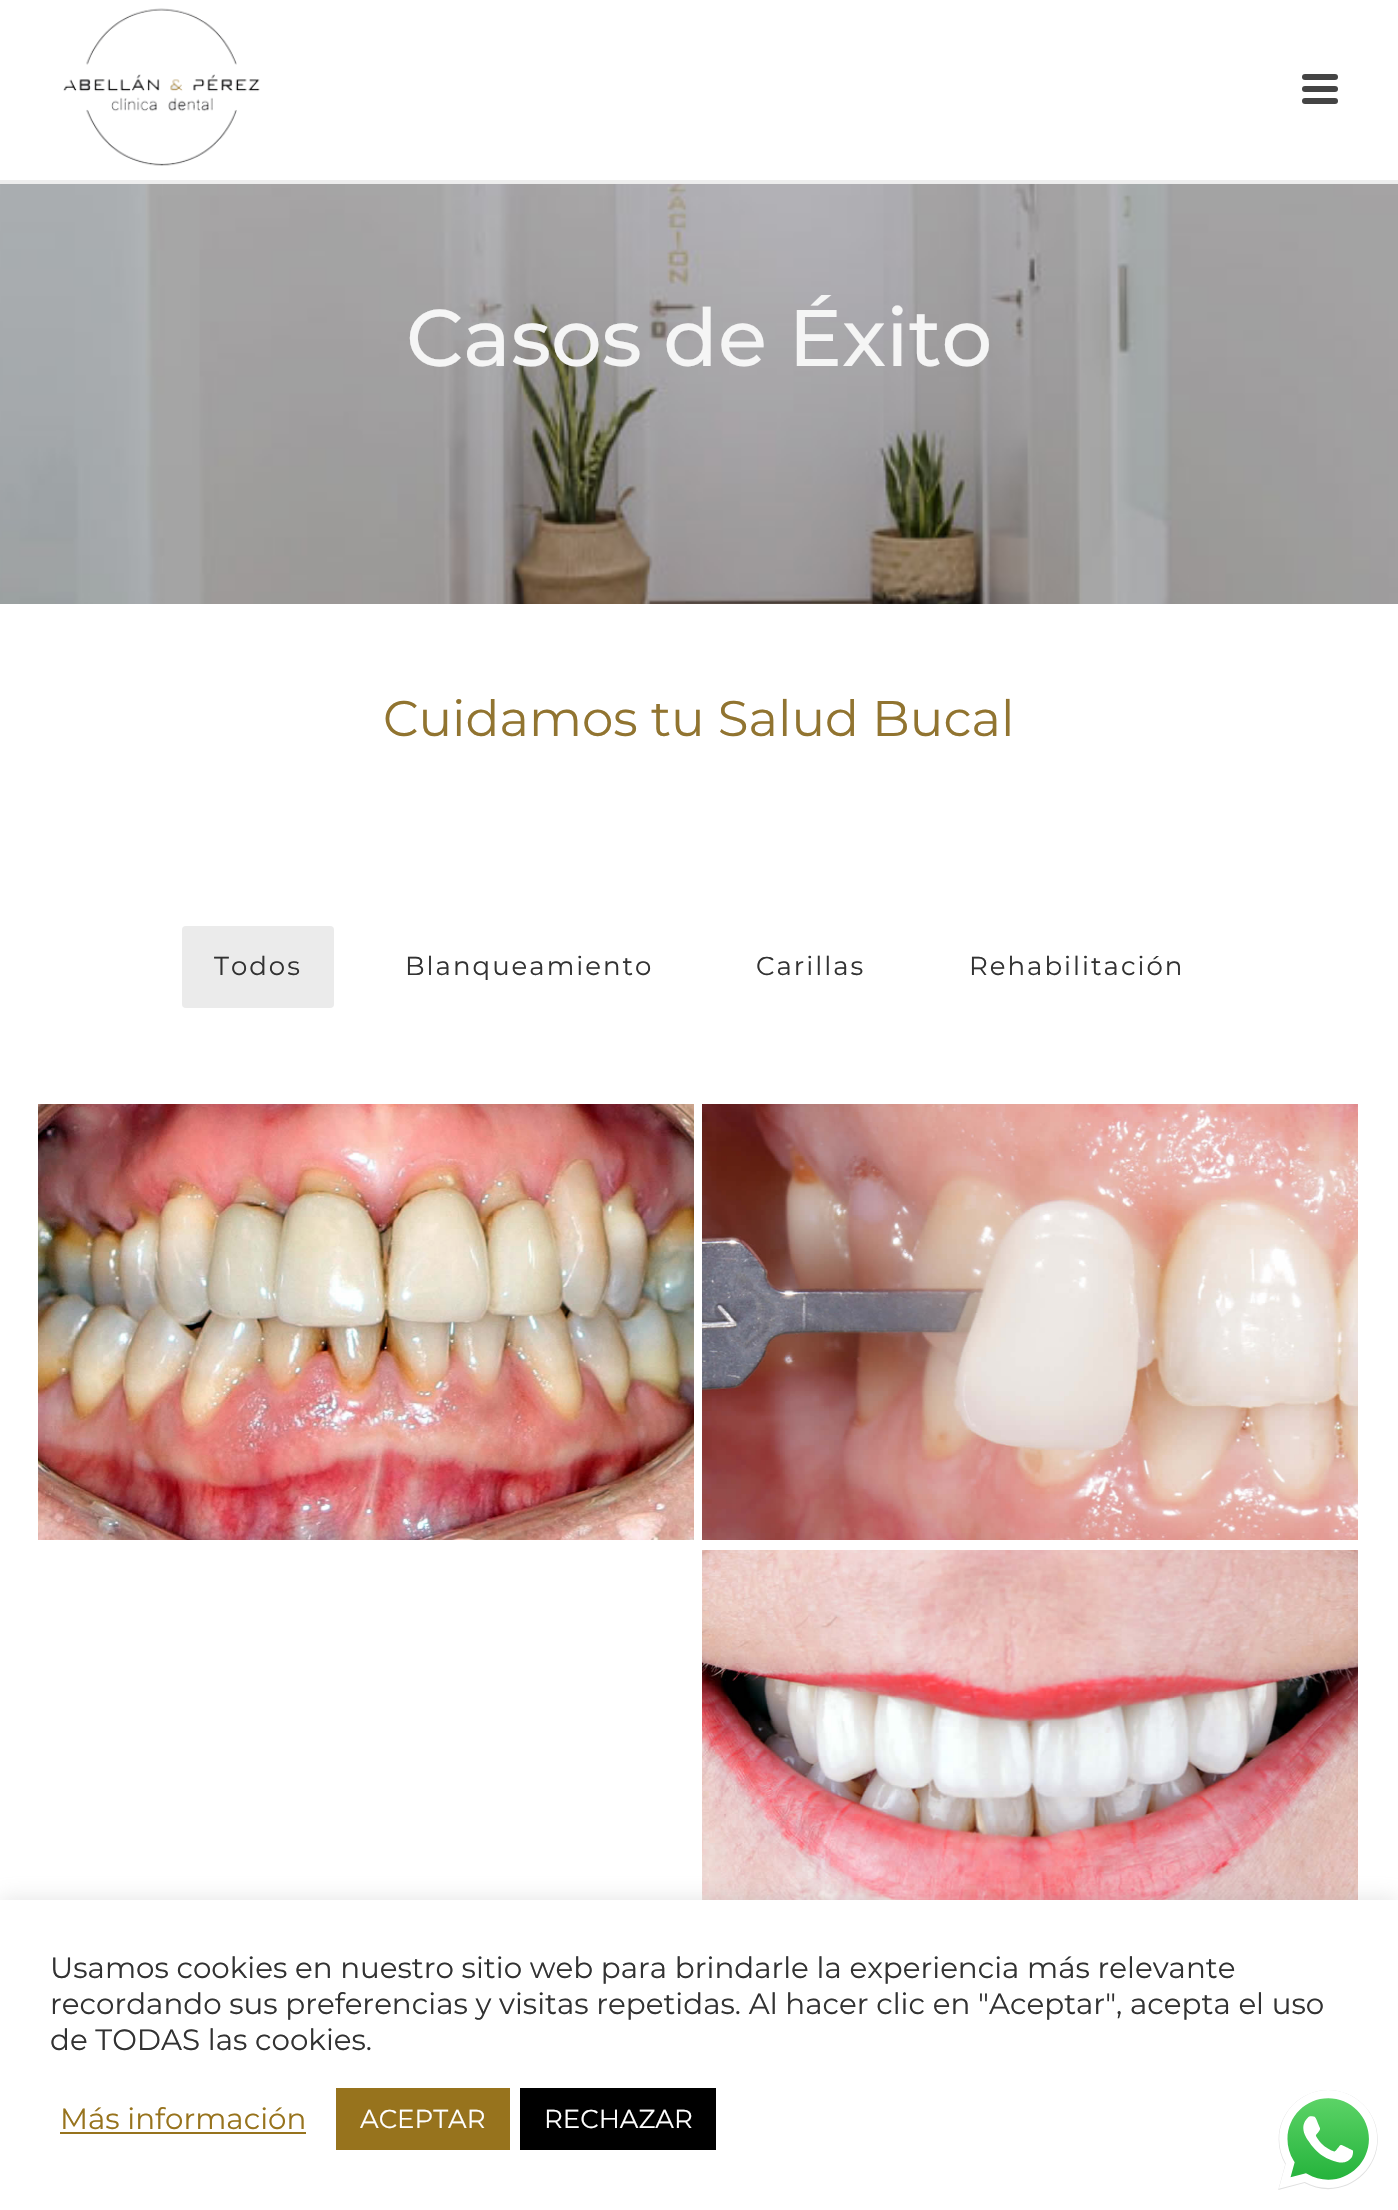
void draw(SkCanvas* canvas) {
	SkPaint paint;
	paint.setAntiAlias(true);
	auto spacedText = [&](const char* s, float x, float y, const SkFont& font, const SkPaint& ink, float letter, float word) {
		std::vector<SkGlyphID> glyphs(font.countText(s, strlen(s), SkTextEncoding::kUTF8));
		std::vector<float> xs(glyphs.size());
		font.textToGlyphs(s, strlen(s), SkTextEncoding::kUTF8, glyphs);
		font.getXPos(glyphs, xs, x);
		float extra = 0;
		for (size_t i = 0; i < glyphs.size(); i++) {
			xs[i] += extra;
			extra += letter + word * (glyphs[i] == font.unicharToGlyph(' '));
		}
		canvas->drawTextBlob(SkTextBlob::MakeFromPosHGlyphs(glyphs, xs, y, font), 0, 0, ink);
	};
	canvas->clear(0xffffffff);
	paint.setColor(0xffededed);
	canvas->drawRect(SkRect::MakeXYWH(0, 180, 1398, 4), paint);
	canvas->drawImageRect(SkImages::DeferredFromEncodedData(SkData::MakeFromFileName("img1.png")), SkRect::MakeXYWH(63, 8, 197, 158), SkSamplingOptions());
	paint.setColor(0xff444444);
	canvas->drawRoundRect(SkRect::MakeXYWH(1302, 74, 36, 6), 3, 3, paint);
	canvas->drawRoundRect(SkRect::MakeXYWH(1302, 86, 36, 6), 3, 3, paint);
	canvas->drawRoundRect(SkRect::MakeXYWH(1302, 98, 36, 6), 3, 3, paint);
	canvas->drawImageRect(SkImages::DeferredFromEncodedData(SkData::MakeFromFileName("img2.png")), SkRect::MakeXYWH(0, 184, 1398, 420), SkSamplingOptions());
	SkFont f1(fontMgr->matchFamilyStyle("Montserrat", SkFontStyle(500, SkFontStyle::kNormal_Width, SkFontStyle::kUpright_Slant)), 80);
	f1.setSubpixel(true);
	paint.setColor(0xfff5f5f5);
	canvas->drawString("Casos de Éxito", 406, 366, f1, paint);
	SkFont f2(fontMgr->matchFamilyStyle("Montserrat", SkFontStyle::Normal()), 50);
	f2.setSubpixel(true);
	paint.setColor(0xff917430);
	canvas->drawString("Cuidamos tu Salud Bucal", 383, 736, f2, paint);
	paint.setColor(0xffebebeb);
	canvas->drawRoundRect(SkRect::MakeXYWH(182, 926, 152, 82), 4, 4, paint);
	SkFont f3(fontMgr->matchFamilyStyle("Montserrat", SkFontStyle::Normal()), 26);
	f3.setSubpixel(true);
	paint.setColor(0xff323232);
	spacedText("Todos", 214, 975, f3, paint, 2, 0);
	spacedText("Blanqueamiento", 405, 975, f3, paint, 2, 0);
	spacedText("Carillas", 756, 975, f3, paint, 2, 0);
	spacedText("Rehabilitación", 969, 975, f3, paint, 2, 0);
	canvas->drawImageRect(SkImages::DeferredFromEncodedData(SkData::MakeFromFileName("img3.png")), SkRect::MakeXYWH(38, 1104, 656, 436), SkSamplingOptions());
	canvas->drawImageRect(SkImages::DeferredFromEncodedData(SkData::MakeFromFileName("img4.png")), SkRect::MakeXYWH(702, 1104, 656, 436), SkSamplingOptions());
	canvas->drawImageRect(SkImages::DeferredFromEncodedData(SkData::MakeFromFileName("img5.png")), SkRect::MakeXYWH(702, 1550, 656, 350), SkSamplingOptions());
	paint.setColor(0x4dacabab);
	paint.setMaskFilter(SkMaskFilter::MakeBlur(kNormal_SkBlurStyle, 10));
	canvas->drawRect(SkRect::MakeXYWH(0, 1898, 1398, 310), paint);
	paint.setMaskFilter(nullptr);
	paint.setColor(0xffffffff);
	canvas->drawRect(SkRect::MakeXYWH(0, 1900, 1398, 310), paint);
	SkFont f4(fontMgr->matchFamilyStyle("Montserrat", SkFontStyle::Normal()), 29.35);
	f4.setSubpixel(true);
	paint.setColor(0xff323232);
	canvas->drawString("Usamos cookies en nuestro sitio web para brindarle la experiencia más relevante", 50, 1978, f4, paint);
	canvas->drawString("recordando sus preferencias y visitas repetidas. Al hacer clic en \"Aceptar\", acepta el uso", 50, 2014, f4, paint);
	canvas->drawString("de TODAS las cookies.", 50, 2050, f4, paint);
	paint.setColor(0xff97731d);
	canvas->drawString("Más información", 60, 2129, f4, paint);
	canvas->drawRect(SkRect::MakeXYWH(60, 2132, 246, 2), paint);
	canvas->drawRect(SkRect::MakeXYWH(336, 2088, 174, 62), paint);
	paint.setColor(0xffffffff);
	canvas->drawString("ACEPTAR", 360, 2128, f3, paint);
	paint.setColor(0xff000000);
	canvas->drawRect(SkRect::MakeXYWH(520, 2088, 196, 62), paint);
	paint.setColor(0xffffffff);
	canvas->drawString("RECHAZAR", 544, 2128, f3, paint);
	canvas->drawImageRect(SkImages::DeferredFromEncodedData(SkData::MakeFromFileName("img6.png")), SkRect::MakeXYWH(1278, 2090, 100, 100), SkSamplingOptions());
}
